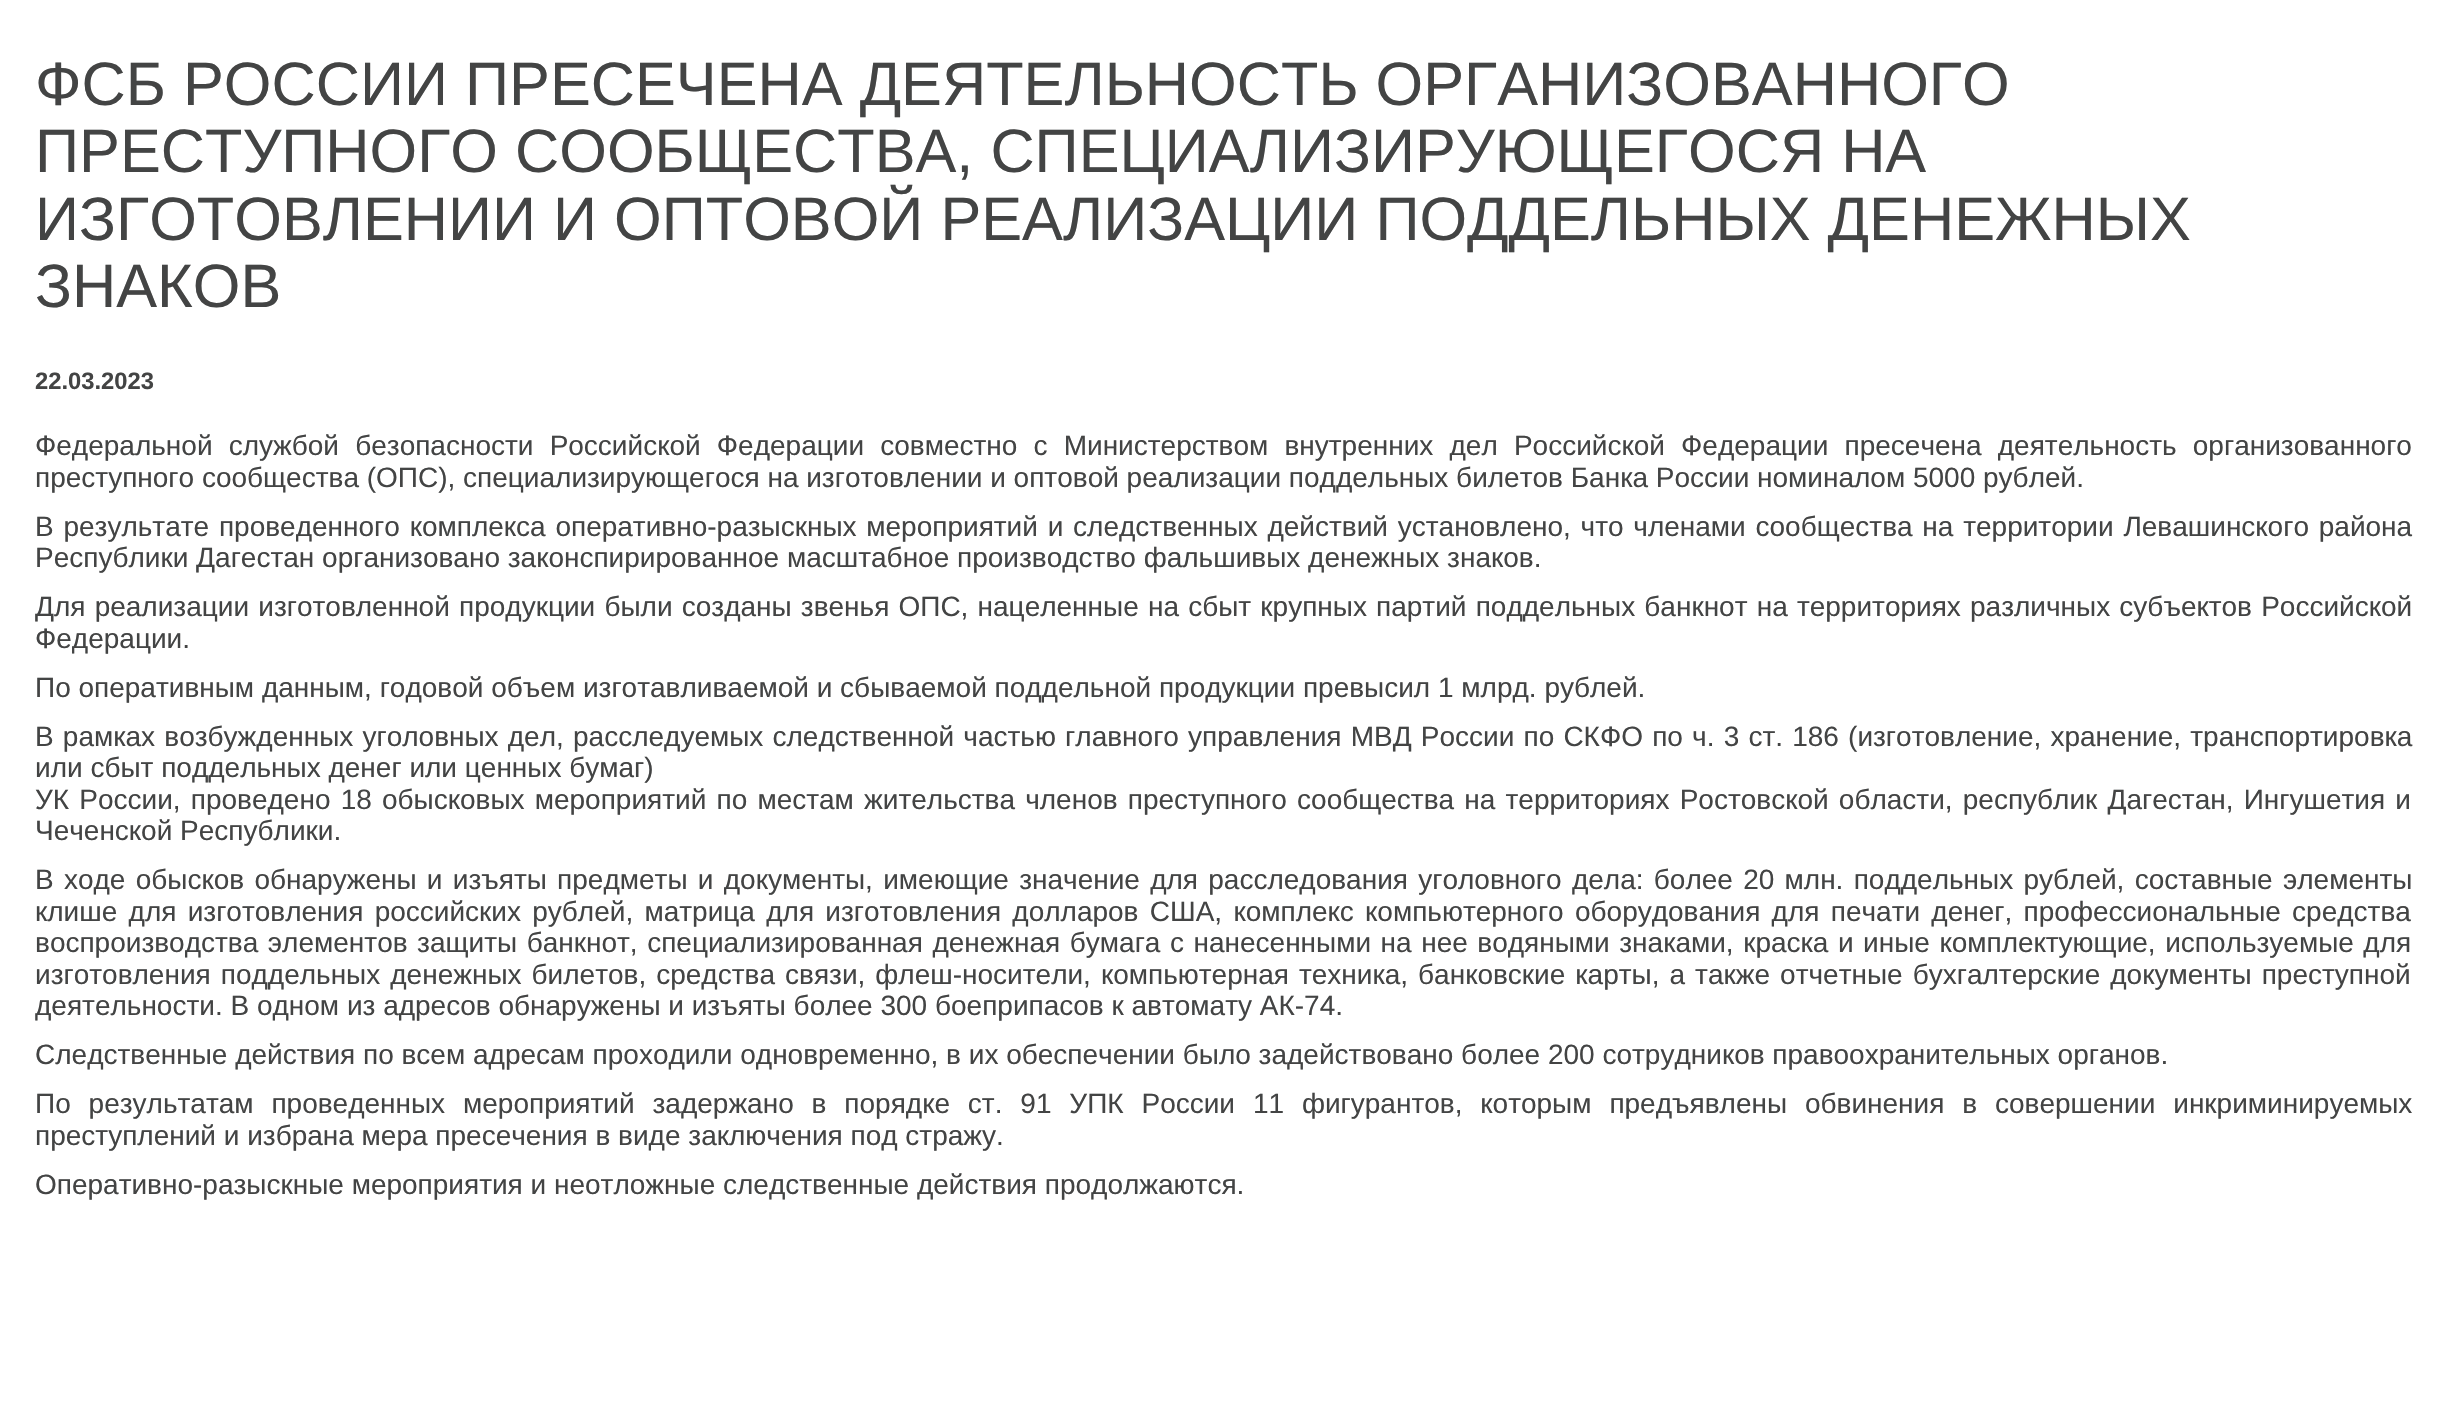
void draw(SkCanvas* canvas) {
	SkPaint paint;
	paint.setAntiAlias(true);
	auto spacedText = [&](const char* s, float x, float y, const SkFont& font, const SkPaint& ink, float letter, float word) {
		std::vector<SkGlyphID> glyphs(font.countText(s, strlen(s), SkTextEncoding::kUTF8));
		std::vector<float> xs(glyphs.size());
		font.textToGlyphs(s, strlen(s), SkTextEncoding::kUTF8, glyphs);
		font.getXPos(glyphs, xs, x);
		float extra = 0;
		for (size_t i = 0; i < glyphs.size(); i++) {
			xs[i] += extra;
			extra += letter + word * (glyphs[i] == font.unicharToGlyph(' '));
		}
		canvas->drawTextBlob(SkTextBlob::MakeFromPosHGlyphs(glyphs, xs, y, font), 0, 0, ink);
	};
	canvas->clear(0xffffffff);
	SkFont f1(fontMgr->matchFamilyStyle("Liberation Sans", SkFontStyle::Normal()), 61.25);
	f1.setSubpixel(true);
	paint.setColor(0xff434444);
	canvas->drawString("ФСБ РОССИИ ПРЕСЕЧЕНА ДЕЯТЕЛЬНОСТЬ ОРГАНИЗОВАННОГО", 35, 105, f1, paint);
	canvas->drawString("ПРЕСТУПНОГО СООБЩЕСТВА, СПЕЦИАЛИЗИРУЮЩЕГОСЯ НА", 35, 172, f1, paint);
	canvas->drawString("ИЗГОТОВЛЕНИИ И ОПТОВОЙ РЕАЛИЗАЦИИ ПОДДЕЛЬНЫХ ДЕНЕЖНЫХ", 35, 240, f1, paint);
	canvas->drawString("ЗНАКОВ", 35, 307, f1, paint);
	SkFont f2(fontMgr->matchFamilyStyle("Liberation Sans", SkFontStyle::Bold()), 23.75);
	f2.setSubpixel(true);
	canvas->drawString("22.03.2023", 35, 389, f2, paint);
	SkFont f3(fontMgr->matchFamilyStyle("Liberation Sans", SkFontStyle::Normal()), 28);
	f3.setSubpixel(true);
	spacedText("Федеральной службой безопасности Российской Федерации совместно с Министерством внутренних дел Российской Федерации пресечена деятельность организованного", 35, 455, f3, paint, 0, 8.4);
	canvas->drawString("преступного сообщества (ОПС), специализирующегося на изготовлении и оптовой реализации поддельных билетов Банка России номиналом 5000 рублей.", 35, 487, f3, paint);
	spacedText("В результате проведенного комплекса оперативно-разыскных мероприятий и следственных действий установлено, что членами сообщества на территории Левашинского района", 35, 536, f3, paint, 0, 2);
	canvas->drawString("Республики Дагестан организовано законспирированное масштабное производство фальшивых денежных знаков.", 35, 567, f3, paint);
	spacedText("Для реализации изготовленной продукции были созданы звенья ОПС, нацеленные на сбыт крупных партий поддельных банкнот на территориях различных субъектов Российской", 35, 616, f3, paint, 0, 1.4);
	canvas->drawString("Федерации.", 35, 648, f3, paint);
	canvas->drawString("По оперативным данным, годовой объем изготавливаемой и сбываемой поддельной продукции превысил 1 млрд. рублей.", 35, 697, f3, paint);
	spacedText("В рамках возбужденных уголовных дел, расследуемых следственной частью главного управления МВД России по СКФО по ч. 3 ст. 186 (изготовление, хранение, транспортировка", 35, 746, f3, paint, 0, 1.4);
	canvas->drawString("или сбыт поддельных денег или ценных бумаг)", 35, 777, f3, paint);
	spacedText("УК России, проведено 18 обысковых мероприятий по местам жительства членов преступного сообщества на территориях Ростовской области, республик Дагестан, Ингушетия и", 35, 809, f3, paint, 0, 2.4);
	canvas->drawString("Чеченской Республики.", 35, 840, f3, paint);
	spacedText("В ходе обысков обнаружены и изъяты предметы и документы, имеющие значение для расследования уголовного дела: более 20 млн. поддельных рублей, составные элементы", 35, 889, f3, paint, 0, 2.5);
	spacedText("клише для изготовления российских рублей, матрица для изготовления долларов США, комплекс компьютерного оборудования для печати денег, профессиональные средства", 35, 921, f3, paint, 0, 3.5);
	spacedText("воспроизводства элементов защиты банкнот, специализированная денежная бумага с нанесенными на нее водяными знаками, краска и иные комплектующие, используемые для", 35, 952, f3, paint, 0, 1.75);
	spacedText("изготовления поддельных денежных билетов, средства связи, флеш-носители, компьютерная техника, банковские карты, а также отчетные бухгалтерские документы преступной", 35, 984, f3, paint, 0, 2.25);
	canvas->drawString("деятельности. В одном из адресов обнаружены и изъяты более 300 боеприпасов к автомату АК-74.", 35, 1015, f3, paint);
	canvas->drawString("Следственные действия по всем адресам проходили одновременно, в их обеспечении было задействовано более 200 сотрудников правоохранительных органов.", 35, 1064, f3, paint);
	spacedText("По результатам проведенных мероприятий задержано в порядке ст. 91 УПК России 11 фигурантов, которым предъявлены обвинения в совершении инкриминируемых", 35, 1113, f3, paint, 0, 10.1);
	canvas->drawString("преступлений и избрана мера пресечения в виде заключения под стражу.", 35, 1145, f3, paint);
	canvas->drawString("Оперативно-разыскные мероприятия и неотложные следственные действия продолжаются.", 35, 1194, f3, paint);
}
